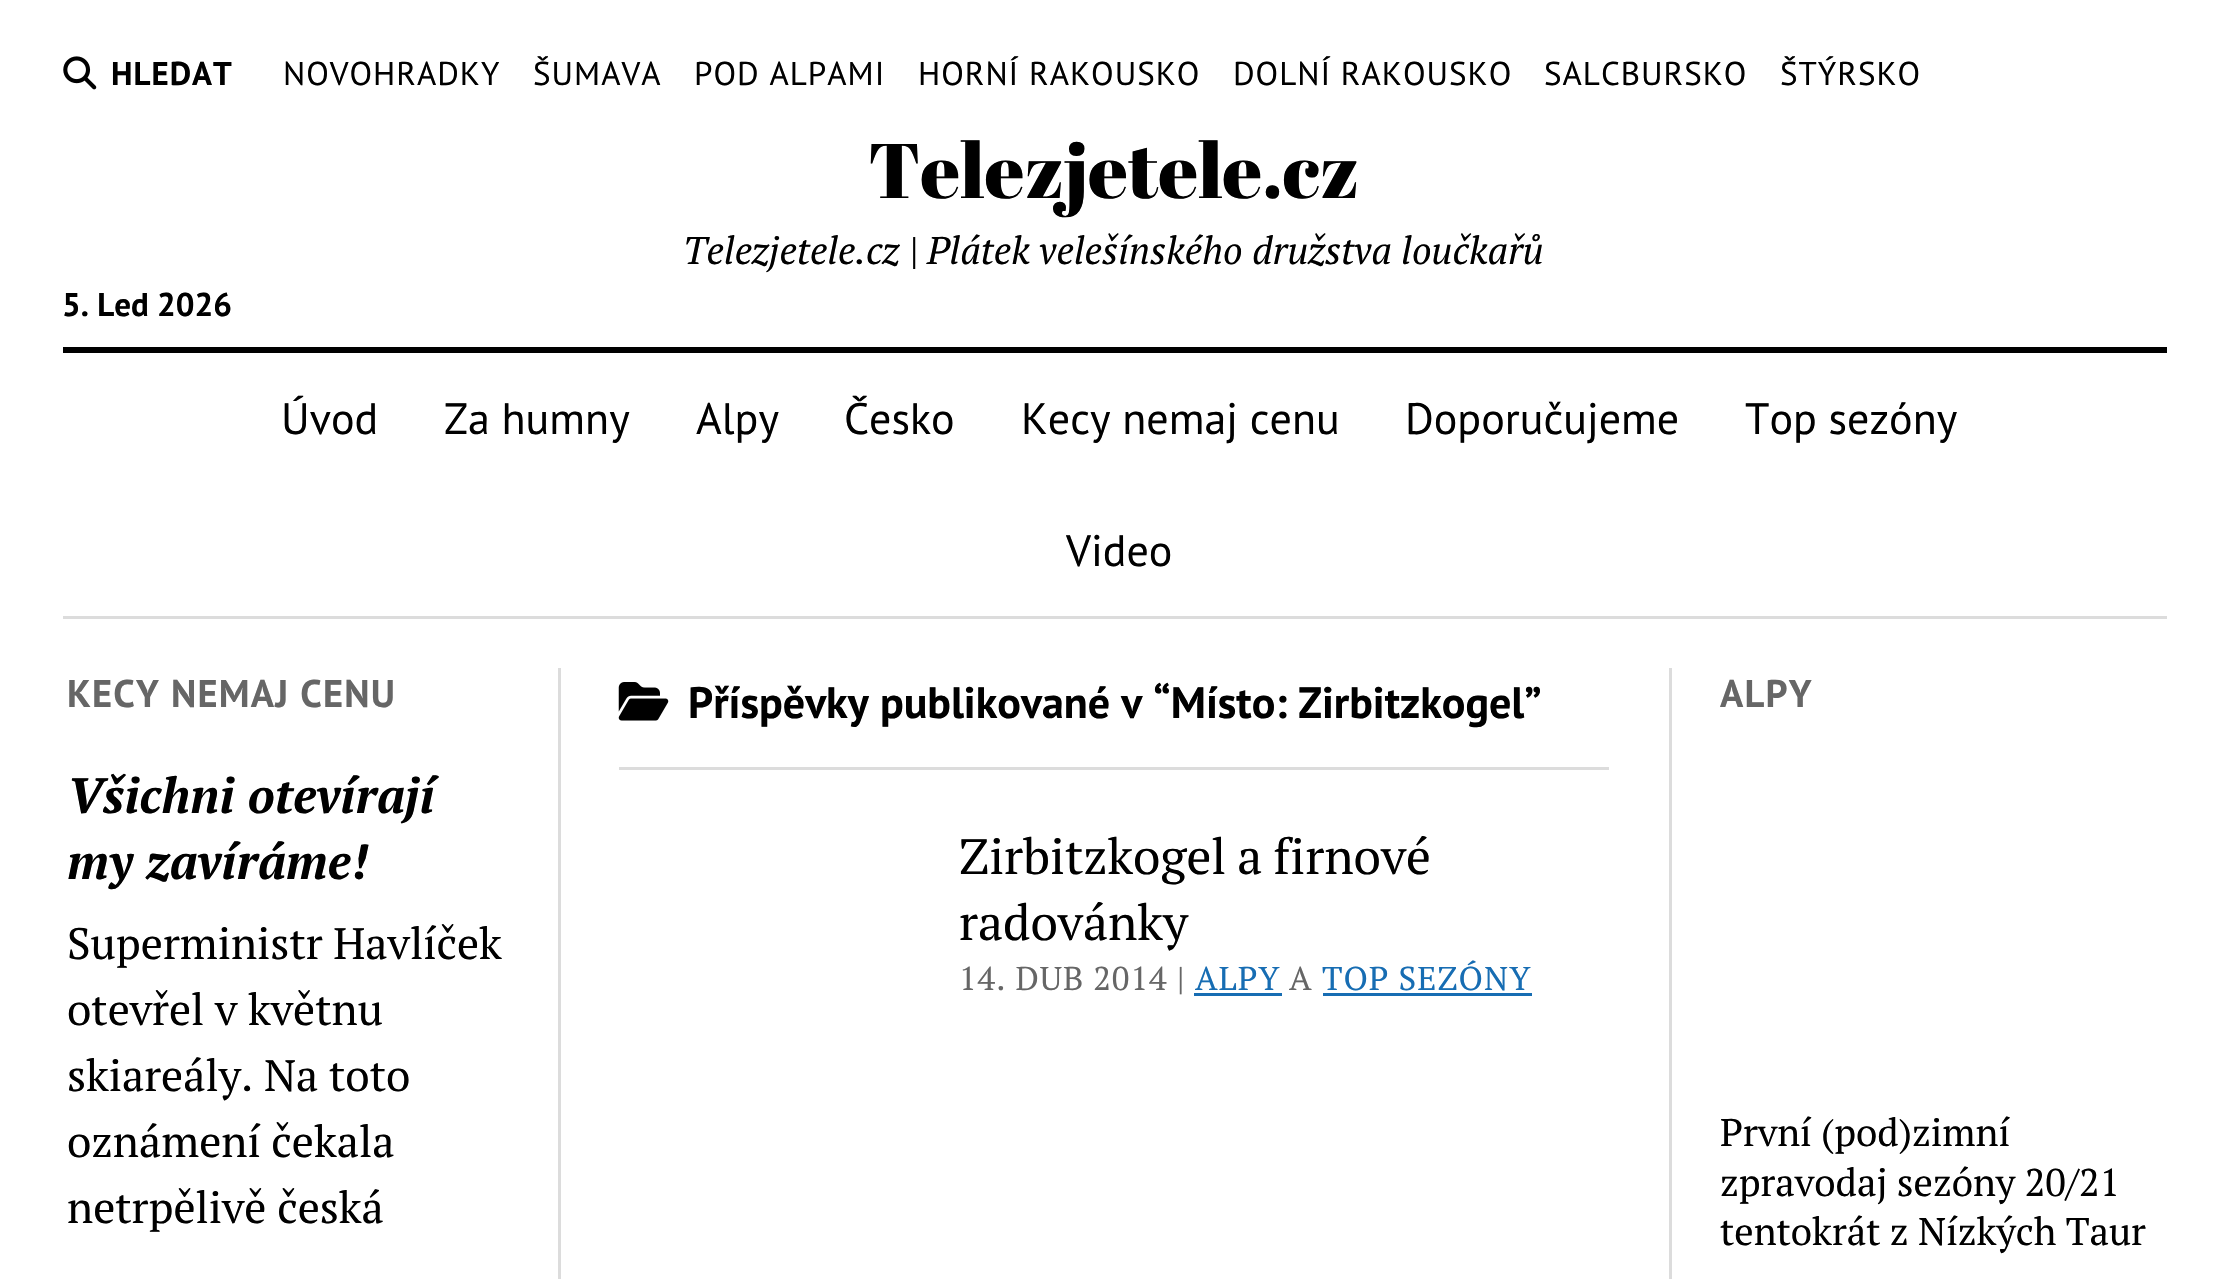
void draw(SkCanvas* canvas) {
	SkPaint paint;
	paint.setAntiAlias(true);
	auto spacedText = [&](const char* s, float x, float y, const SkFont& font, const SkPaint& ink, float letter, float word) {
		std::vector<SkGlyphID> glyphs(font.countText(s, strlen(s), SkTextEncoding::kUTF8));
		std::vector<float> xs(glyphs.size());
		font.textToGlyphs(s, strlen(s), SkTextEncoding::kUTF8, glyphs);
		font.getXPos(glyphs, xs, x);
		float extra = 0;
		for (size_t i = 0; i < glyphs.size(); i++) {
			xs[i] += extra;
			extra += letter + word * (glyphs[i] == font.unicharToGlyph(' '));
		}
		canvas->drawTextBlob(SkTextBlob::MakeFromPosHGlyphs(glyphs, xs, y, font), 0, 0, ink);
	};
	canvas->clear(0xffffffff);
	canvas->drawImageRect(SkImages::DeferredFromEncodedData(SkData::MakeFromFileName("img1.png")), SkRect::MakeXYWH(63, 56, 34, 34), SkSamplingOptions());
	SkFont f1(fontMgr->matchFamilyStyle("PT Sans", SkFontStyle::Bold()), 33);
	f1.setSubpixel(true);
	paint.setColor(0xff000000);
	spacedText("HLEDAT", 111, 85, f1, paint, 1, 0);
	SkFont f2(fontMgr->matchFamilyStyle("PT Sans", SkFontStyle::Normal()), 33);
	f2.setSubpixel(true);
	spacedText("NOVOHRADKY", 283, 85, f2, paint, 1, 0);
	spacedText("ŠUMAVA", 533, 85, f2, paint, 1, 0);
	spacedText("POD ALPAMI", 694, 85, f2, paint, 1, 0);
	spacedText("HORNÍ RAKOUSKO", 918, 85, f2, paint, 1, 0);
	spacedText("DOLNÍ RAKOUSKO", 1233, 85, f2, paint, 1, 0);
	spacedText("SALCBURSKO", 1544, 85, f2, paint, 1, 0);
	spacedText("ŠTÝRSKO", 1780, 85, f2, paint, 1, 0);
	SkFont f3(fontMgr->matchFamilyStyle("Abril Fatface", SkFontStyle::Normal()), 77);
	f3.setSubpixel(true);
	canvas->drawString("Telezjetele.cz", 868, 198, f3, paint);
	SkFont f4(fontMgr->matchFamilyStyle("PT Serif", SkFontStyle::Italic()), 38.5);
	f4.setSubpixel(true);
	canvas->drawString("Telezjetele.cz | Plátek velešínského družstva loučkařů", 683, 264, f4, paint);
	canvas->drawString("5. Led 2026", 62, 316, f1, paint);
	canvas->drawRect(SkRect::MakeXYWH(63, 347, 2104, 6), paint);
	paint.setColor(0xffdcdcdc);
	canvas->drawRect(SkRect::MakeXYWH(63, 616, 2104, 3), paint);
	SkFont f5(fontMgr->matchFamilyStyle("PT Sans", SkFontStyle::Normal()), 44);
	f5.setSubpixel(true);
	paint.setColor(0xff000000);
	canvas->drawString("Úvod", 281, 434, f5, paint);
	canvas->drawString("Za humny", 444, 434, f5, paint);
	canvas->drawString("Alpy", 696, 434, f5, paint);
	canvas->drawString("Česko", 844, 434, f5, paint);
	canvas->drawString("Kecy nemaj cenu", 1021, 434, f5, paint);
	canvas->drawString("Doporučujeme", 1405, 434, f5, paint);
	canvas->drawString("Top sezóny", 1745, 434, f5, paint);
	canvas->drawString("Video", 1066, 566, f5, paint);
	paint.setColor(0xffdcdcdc);
	canvas->drawRect(SkRect::MakeXYWH(558, 668, 3, 611), paint);
	canvas->drawRect(SkRect::MakeXYWH(1669, 668, 3, 611), paint);
	SkFont f6(fontMgr->matchFamilyStyle("PT Sans", SkFontStyle::Bold()), 38.5);
	f6.setSubpixel(true);
	paint.setColor(0xff666666);
	spacedText("KECY NEMAJ CENU", 67, 707, f6, paint, 1.2, 0);
	SkFont f7(fontMgr->matchFamilyStyle("PT Serif", SkFontStyle::BoldItalic()), 49.5);
	f7.setSubpixel(true);
	paint.setColor(0xff000000);
	canvas->drawString("Všichni otevírají", 67, 813, f7, paint);
	canvas->drawString("my zavíráme!", 67, 879, f7, paint);
	SkFont f8(fontMgr->matchFamilyStyle("PT Serif", SkFontStyle::Normal()), 44);
	f8.setSubpixel(true);
	canvas->drawString("Superministr Havlíček", 67, 959, f8, paint);
	canvas->drawString("otevřel v květnu", 67, 1025, f8, paint);
	canvas->drawString("skiareály. Na toto", 67, 1091, f8, paint);
	canvas->drawString("oznámení čekala", 67, 1157, f8, paint);
	canvas->drawString("netrpělivě česká", 67, 1223, f8, paint);
	paint.setColor(0xffdcdcdc);
	canvas->drawRect(SkRect::MakeXYWH(619, 767, 990, 3), paint);
	canvas->drawImageRect(SkImages::DeferredFromEncodedData(SkData::MakeFromFileName("img2.png")), SkRect::MakeXYWH(618, 682, 51, 39), SkSamplingOptions());
	SkFont f9(fontMgr->matchFamilyStyle("PT Sans", SkFontStyle::Bold()), 44);
	f9.setSubpixel(true);
	paint.setColor(0xff000000);
	canvas->drawString("Příspěvky publikované v “Místo: Zirbitzkogel”", 688, 718, f9, paint);
	SkFont f10(fontMgr->matchFamilyStyle("PT Serif", SkFontStyle::Normal()), 49.5);
	f10.setSubpixel(true);
	spacedText("Zirbitzkogel a firnové", 959, 874, f10, paint, 0, -1);
	canvas->drawString("radovánky", 959, 940, f10, paint);
	SkFont f11(fontMgr->matchFamilyStyle("PT Serif", SkFontStyle::Normal()), 33);
	f11.setSubpixel(true);
	paint.setColor(0xff666666);
	spacedText("14. DUB 2014 |", 959, 990, f11, paint, 1, 0);
	paint.setColor(0xff176db3);
	spacedText("ALPY", 1195, 990, f11, paint, 1, 0);
	canvas->drawRect(SkRect::MakeXYWH(1194, 993, 88, 3), paint);
	paint.setColor(0xff666666);
	spacedText("A", 1289, 990, f11, paint, 1, 0);
	paint.setColor(0xff176db3);
	spacedText("TOP SEZÓNY", 1322, 990, f11, paint, 1, 0);
	canvas->drawRect(SkRect::MakeXYWH(1323, 993, 209, 3), paint);
	paint.setColor(0xff666666);
	spacedText("ALPY", 1720, 707, f6, paint, 1.2, 0);
	SkFont f12(fontMgr->matchFamilyStyle("PT Serif", SkFontStyle::Normal()), 38.5);
	f12.setSubpixel(true);
	paint.setColor(0xff000000);
	canvas->drawString("První (pod)zimní", 1720, 1146, f12, paint);
	canvas->drawString("zpravodaj sezóny 20/21", 1720, 1196, f12, paint);
	canvas->drawString("tentokrát z Nízkých Taur", 1720, 1245, f12, paint);
}
